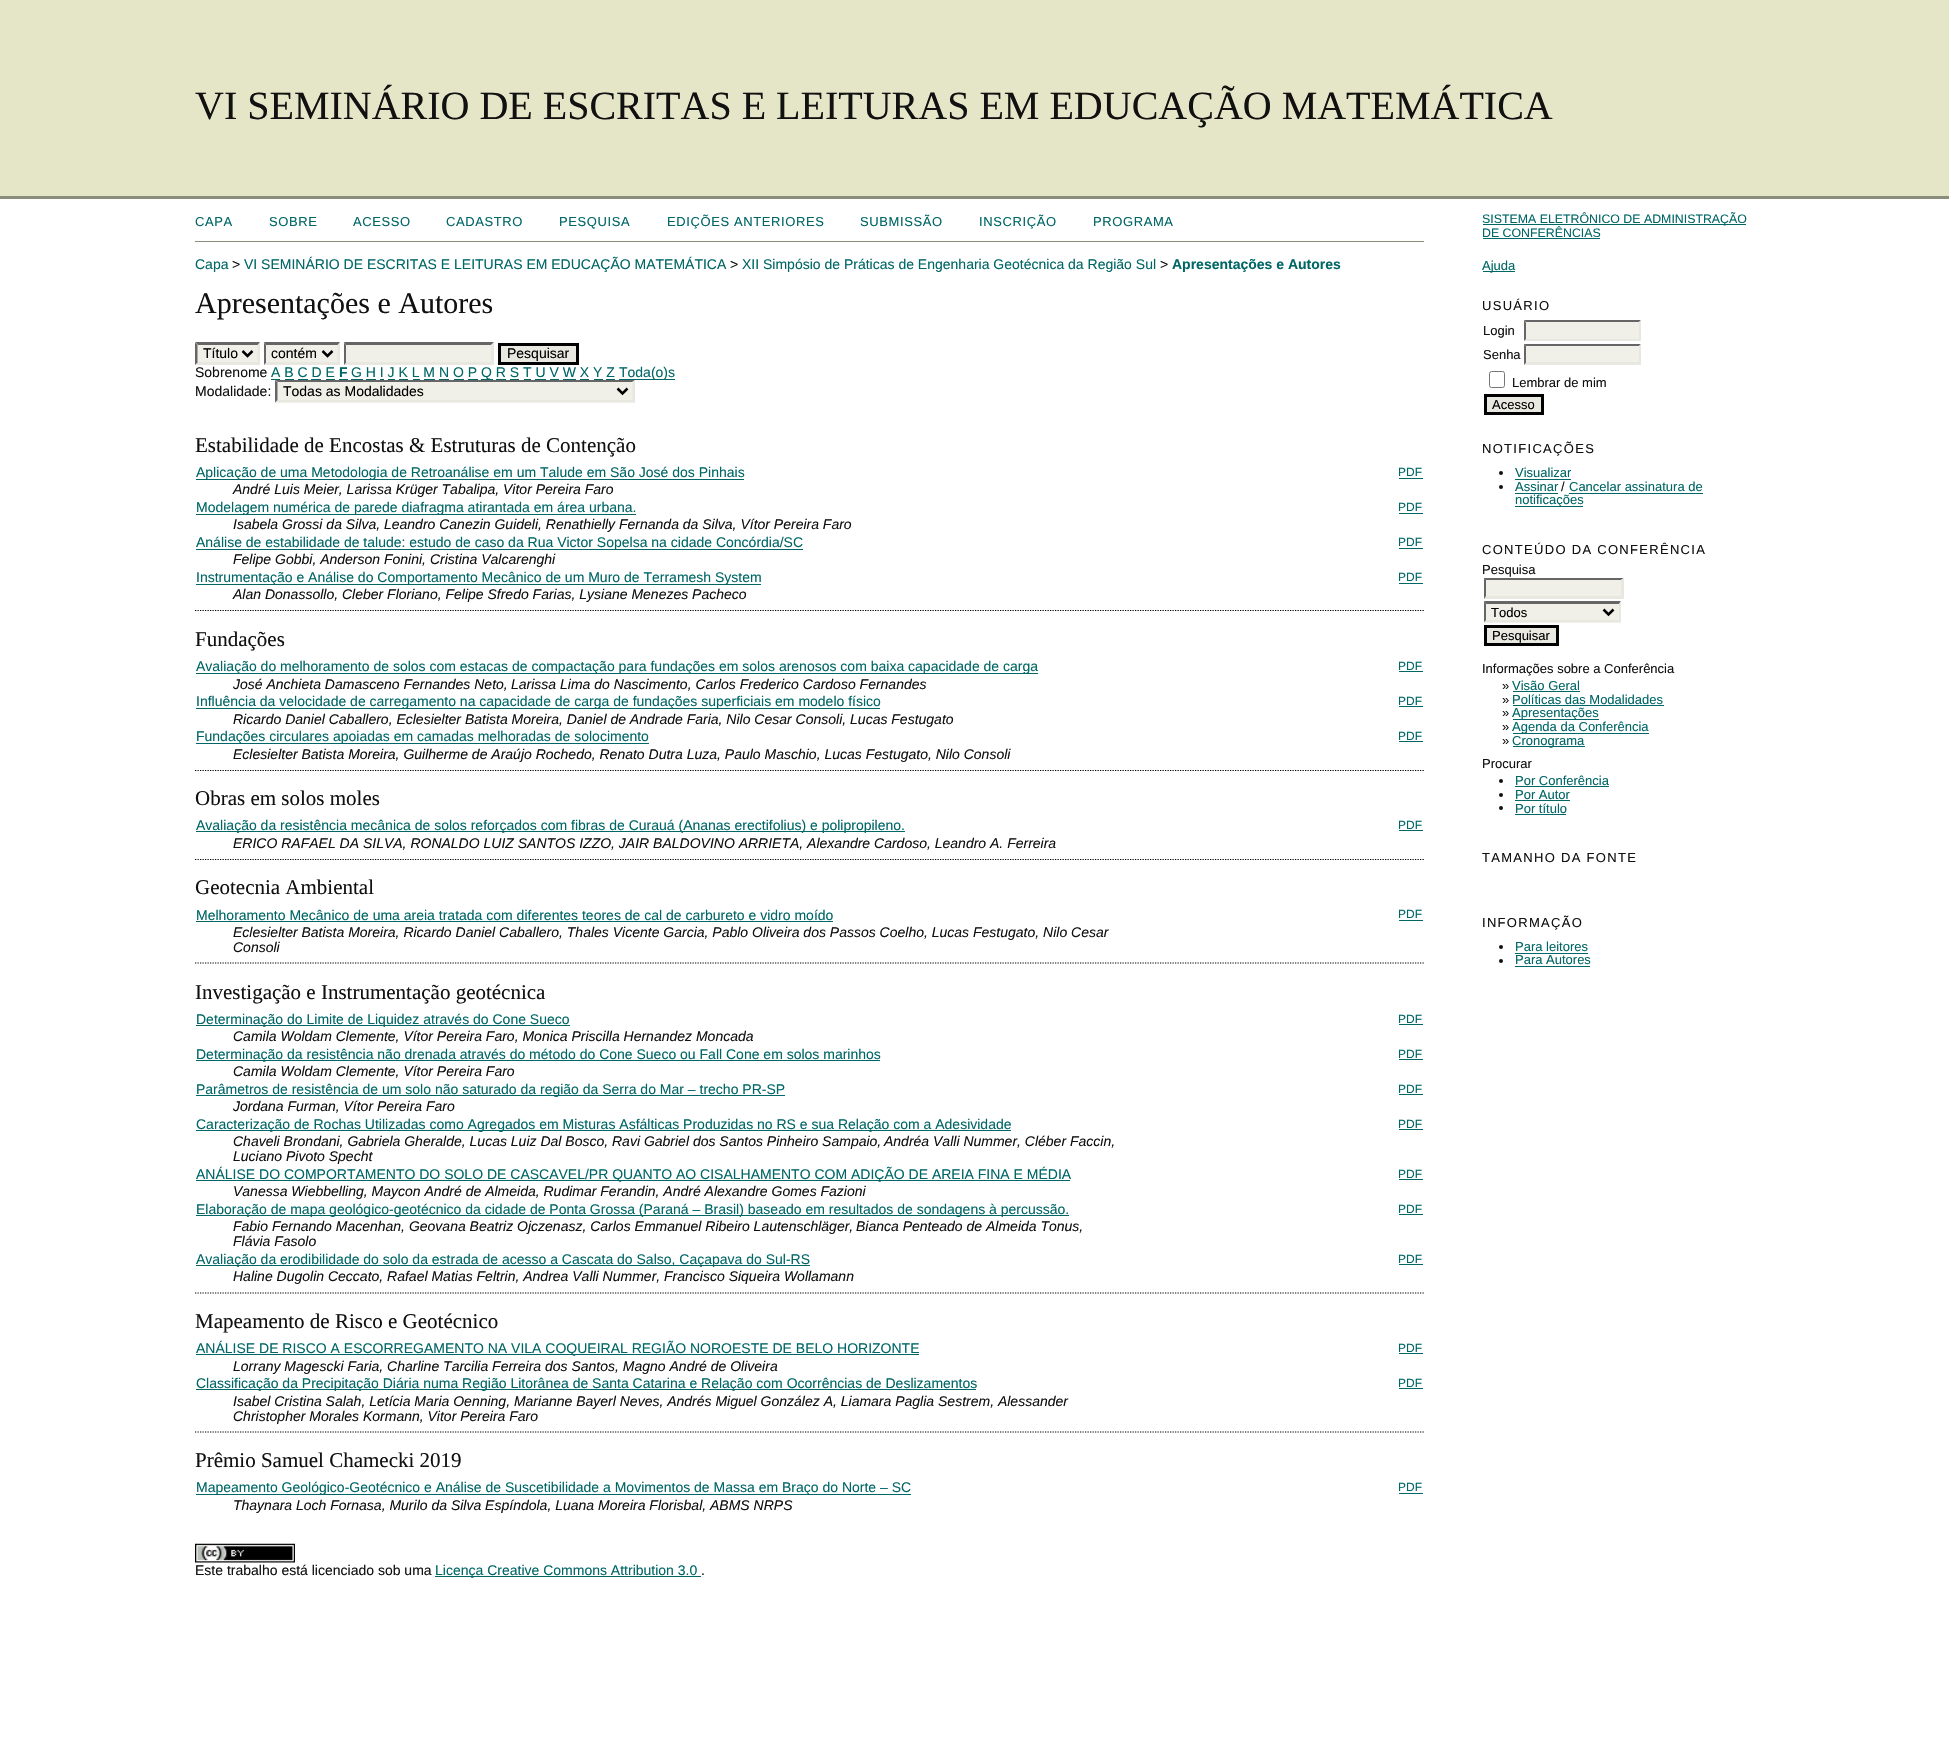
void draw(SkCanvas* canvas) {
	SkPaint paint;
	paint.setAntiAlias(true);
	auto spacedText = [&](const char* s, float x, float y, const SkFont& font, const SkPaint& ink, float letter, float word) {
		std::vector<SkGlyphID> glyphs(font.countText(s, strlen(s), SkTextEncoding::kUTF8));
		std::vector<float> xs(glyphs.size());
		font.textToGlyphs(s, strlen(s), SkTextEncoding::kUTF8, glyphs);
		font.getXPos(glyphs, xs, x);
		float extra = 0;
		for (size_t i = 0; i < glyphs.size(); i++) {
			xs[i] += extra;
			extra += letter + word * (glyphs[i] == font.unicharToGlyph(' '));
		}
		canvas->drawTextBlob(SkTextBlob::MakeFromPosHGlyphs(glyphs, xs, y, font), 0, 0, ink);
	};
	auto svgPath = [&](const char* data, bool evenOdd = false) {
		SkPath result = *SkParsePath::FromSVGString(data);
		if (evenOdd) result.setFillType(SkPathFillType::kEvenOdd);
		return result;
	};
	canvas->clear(0xffffffff);
	paint.setColor(0xffe5e5c7);
	canvas->drawRect(SkRect::MakeXYWH(0, 0, 1949, 196), paint);
	paint.setColor(0xff898e79);
	canvas->drawRect(SkRect::MakeXYWH(0, 196, 1949, 3), paint);
	SkFont f1(fontMgr->matchFamilyStyle("Liberation Serif", SkFontStyle::Normal()), 40);
	f1.setSubpixel(true);
	paint.setColor(0xff111111);
	canvas->drawString("VI SEMINÁRIO DE ESCRITAS E LEITURAS EM EDUCAÇÃO MATEMÁTICA", 195, 119, f1, paint);
	paint.setColor(0xff898e79);
	canvas->drawRect(SkRect::MakeXYWH(195, 241, 1229, 1), paint);
	SkFont f2(fontMgr->matchFamilyStyle("Liberation Sans", SkFontStyle::Normal()), 13);
	f2.setSubpixel(true);
	paint.setColor(0xff006666);
	spacedText("CAPA", 195, 226, f2, paint, 0.6, 0);
	spacedText("SOBRE", 269, 226, f2, paint, 0.6, 0);
	spacedText("ACESSO", 353, 226, f2, paint, 0.6, 0);
	spacedText("CADASTRO", 446, 226, f2, paint, 0.6, 0);
	spacedText("PESQUISA", 559, 226, f2, paint, 0.6, 0);
	spacedText("EDIÇÕES ANTERIORES", 667, 226, f2, paint, 0.6, 0);
	spacedText("SUBMISSÃO", 860, 226, f2, paint, 0.6, 0);
	spacedText("INSCRIÇÃO", 979, 226, f2, paint, 0.6, 0);
	spacedText("PROGRAMA", 1093, 226, f2, paint, 0.6, 0);
	SkFont f3(fontMgr->matchFamilyStyle("Liberation Sans", SkFontStyle::Normal()), 14);
	f3.setSubpixel(true);
	canvas->drawString("Capa", 195, 269, f3, paint);
	paint.setColor(0xff111111);
	canvas->drawString(">", 232, 269, f3, paint);
	paint.setColor(0xff006666);
	canvas->drawString("VI SEMINÁRIO DE ESCRITAS E LEITURAS EM EDUCAÇÃO MATEMÁTICA", 244, 269, f3, paint);
	paint.setColor(0xff111111);
	canvas->drawString(">", 730, 269, f3, paint);
	paint.setColor(0xff006666);
	canvas->drawString("XII Simpósio de Práticas de Engenharia Geotécnica da Região Sul", 742, 269, f3, paint);
	paint.setColor(0xff111111);
	canvas->drawString(">", 1160, 269, f3, paint);
	SkFont f4(fontMgr->matchFamilyStyle("Liberation Sans", SkFontStyle::Bold()), 14);
	f4.setSubpixel(true);
	paint.setColor(0xff006666);
	canvas->drawString("Apresentações e Autores", 1172, 269, f4, paint);
	SkFont f5(fontMgr->matchFamilyStyle("Liberation Serif", SkFontStyle::Normal()), 30);
	f5.setSubpixel(true);
	paint.setColor(0xff111111);
	canvas->drawString("Apresentações e Autores", 195, 313, f5, paint);
	paint.setColor(0xfff0f0e8);
	canvas->drawRect(SkRect::MakeXYWH(195, 343, 65, 22), paint);
	paint.setColor(0xff666666);
	canvas->drawPath(svgPath("M195 342H260L258 345H198Z"), paint);
	paint.setColor(0xffe8e8e1);
	canvas->drawPath(svgPath("M260 342.5V365L257.5 362.5V345Z"), paint);
	canvas->drawPath(svgPath("M260 365H195L198 362H258Z"), paint);
	paint.setColor(0xff666666);
	canvas->drawPath(svgPath("M195 365V342.5L197.5 345V362.5Z"), paint);
	paint.setStroke(true);
	paint.setStrokeWidth(2.5);
	paint.setColor(0xff000000);
	canvas->drawPath(svgPath("M242.5 351L247.5 356L252.5 351"), paint);
	paint.setStroke(false);
	canvas->drawString("Título", 203, 358, f3, paint);
	paint.setColor(0xfff0f0e8);
	canvas->drawRect(SkRect::MakeXYWH(264, 343, 76, 22), paint);
	paint.setColor(0xff666666);
	canvas->drawPath(svgPath("M264 342H340L338 345H266Z"), paint);
	paint.setColor(0xffe8e8e1);
	canvas->drawPath(svgPath("M340 342.5V365L337.5 362.5V345Z"), paint);
	canvas->drawPath(svgPath("M340 365H264L266 362H338Z"), paint);
	paint.setColor(0xff666666);
	canvas->drawPath(svgPath("M264 365V342.5L266 345V362.5Z"), paint);
	paint.setStroke(true);
	paint.setColor(0xff000000);
	canvas->drawPath(svgPath("M322.5 351L327.5 356L332.5 351"), paint);
	paint.setStroke(false);
	canvas->drawString("contém", 271, 358, f3, paint);
	paint.setColor(0xfff0f0e8);
	canvas->drawRect(SkRect::MakeXYWH(344, 343, 150, 22), paint);
	paint.setColor(0xff666666);
	canvas->drawPath(svgPath("M344 342H494L491 345H346Z"), paint);
	paint.setColor(0xffe8e8e1);
	canvas->drawPath(svgPath("M494 342.5V365L491 362.5V345Z"), paint);
	canvas->drawPath(svgPath("M494 365H344L346 362H491Z"), paint);
	paint.setColor(0xff666666);
	canvas->drawPath(svgPath("M344 365V342.5L346 345V362.5Z"), paint);
	paint.setColor(0xffe8e8e1);
	canvas->drawRect(SkRect::MakeXYWH(499.5, 344.5, 78, 19), paint);
	paint.setStroke(true);
	paint.setStrokeWidth(3);
	paint.setColor(0xff000000);
	canvas->drawRect(SkRect::MakeXYWH(499.5, 344.5, 78, 19), paint);
	paint.setStroke(false);
	canvas->drawString("Pesquisar", 507, 358, f3, paint);
	paint.setColor(0xff111111);
	canvas->drawString("Sobrenome", 195, 377, f3, paint);
	paint.setColor(0xff006666);
	canvas->drawString("A B C D E", 271, 377, f3, paint);
	canvas->drawRect(SkRect::MakeXYWH(271, 379, 9, 1), paint);
	canvas->drawString("F", 339, 377, f4, paint);
	canvas->drawRect(SkRect::MakeXYWH(339, 379, 9, 1), paint);
	canvas->drawString("G H I J K L M N O P", 351, 377, f3, paint);
	canvas->drawRect(SkRect::MakeXYWH(351, 379, 12, 1), paint);
	canvas->drawRect(SkRect::MakeXYWH(481, 379, 12, 1), paint);
	canvas->drawString("Q R S T U V W X Y Z", 481, 377, f3, paint);
	canvas->drawRect(SkRect::MakeXYWH(619, 379, 56, 1), paint);
	canvas->drawString("Toda(o)s", 619, 377, f3, paint);
	canvas->drawRect(SkRect::MakeXYWH(285, 379, 9, 1), paint);
	canvas->drawRect(SkRect::MakeXYWH(298, 379, 10, 1), paint);
	canvas->drawRect(SkRect::MakeXYWH(311, 379, 10, 1), paint);
	canvas->drawRect(SkRect::MakeXYWH(326, 379, 9, 1), paint);
	canvas->drawRect(SkRect::MakeXYWH(366, 379, 10, 1), paint);
	canvas->drawRect(SkRect::MakeXYWH(380, 379, 4, 1), paint);
	canvas->drawRect(SkRect::MakeXYWH(388, 379, 7, 1), paint);
	canvas->drawRect(SkRect::MakeXYWH(399, 379, 9, 1), paint);
	canvas->drawRect(SkRect::MakeXYWH(413, 379, 7, 1), paint);
	canvas->drawRect(SkRect::MakeXYWH(424, 379, 11, 1), paint);
	canvas->drawRect(SkRect::MakeXYWH(439, 379, 10, 1), paint);
	canvas->drawRect(SkRect::MakeXYWH(454, 379, 10, 1), paint);
	canvas->drawRect(SkRect::MakeXYWH(468, 379, 10, 1), paint);
	canvas->drawRect(SkRect::MakeXYWH(496, 379, 10, 1), paint);
	canvas->drawRect(SkRect::MakeXYWH(510, 379, 9, 1), paint);
	canvas->drawRect(SkRect::MakeXYWH(524, 379, 7, 1), paint);
	canvas->drawRect(SkRect::MakeXYWH(535, 379, 11, 1), paint);
	canvas->drawRect(SkRect::MakeXYWH(550, 379, 9, 1), paint);
	canvas->drawRect(SkRect::MakeXYWH(563, 379, 13, 1), paint);
	canvas->drawRect(SkRect::MakeXYWH(580, 379, 9, 1), paint);
	canvas->drawRect(SkRect::MakeXYWH(594, 379, 9, 1), paint);
	canvas->drawRect(SkRect::MakeXYWH(606, 379, 9, 1), paint);
	paint.setColor(0xff111111);
	canvas->drawString("Modalidade:", 195, 396, f3, paint);
	paint.setColor(0xfff0f0e8);
	canvas->drawRect(SkRect::MakeXYWH(275, 380, 360, 23), paint);
	paint.setColor(0xff666666);
	canvas->drawPath(svgPath("M275 380H635L632 382H278Z"), paint);
	paint.setColor(0xffe8e8e1);
	canvas->drawPath(svgPath("M635 380V402.5L632.5 400V382.5Z"), paint);
	canvas->drawPath(svgPath("M635 402H275L278 400H632Z"), paint);
	paint.setColor(0xff666666);
	canvas->drawPath(svgPath("M275 402.5V380L277.5 382.5V400Z"), paint);
	paint.setStroke(true);
	paint.setStrokeWidth(2.5);
	paint.setColor(0xff000000);
	canvas->drawPath(svgPath("M617.5 388.5L622.5 393.5L627.5 388.5"), paint);
	paint.setStroke(false);
	canvas->drawString("Todas as Modalidades", 283, 396, f3, paint);
	SkFont f6(fontMgr->matchFamilyStyle("Liberation Serif", SkFontStyle::Normal()), 21);
	f6.setSubpixel(true);
	paint.setColor(0xff111111);
	canvas->drawString("Estabilidade de Encostas & Estruturas de Contenção", 195, 452, f6, paint);
	paint.setColor(0xff006666);
	canvas->drawRect(SkRect::MakeXYWH(196, 479, 548, 1), paint);
	canvas->drawString("Aplicação de uma Metodologia de Retroanálise em um Talude em São José dos Pinhais", 196, 477, f3, paint);
	SkFont f7(fontMgr->matchFamilyStyle("Liberation Sans", SkFontStyle::Normal()), 12);
	f7.setSubpixel(true);
	canvas->drawString("PDF", 1398, 476, f7, paint);
	canvas->drawRect(SkRect::MakeXYWH(1399, 478, 24, 1), paint);
	SkFont f8(fontMgr->matchFamilyStyle("Liberation Sans", SkFontStyle::Italic()), 14);
	f8.setSubpixel(true);
	paint.setColor(0xff111111);
	canvas->drawString("André Luis Meier, Larissa Krüger Tabalipa, Vitor Pereira Faro", 233, 494, f8, paint);
	paint.setColor(0xff006666);
	canvas->drawRect(SkRect::MakeXYWH(196, 514, 440, 1), paint);
	canvas->drawString("Modelagem numérica de parede diafragma atirantada em área urbana.", 196, 512, f3, paint);
	canvas->drawString("PDF", 1398, 511, f7, paint);
	canvas->drawRect(SkRect::MakeXYWH(1399, 513, 24, 1), paint);
	paint.setColor(0xff111111);
	canvas->drawString("Isabela Grossi da Silva, Leandro Canezin Guideli, Renathielly Fernanda da Silva, Vítor Pereira Faro", 233, 529, f8, paint);
	paint.setColor(0xff006666);
	canvas->drawRect(SkRect::MakeXYWH(196, 549, 607, 1), paint);
	canvas->drawString("Análise de estabilidade de talude: estudo de caso da Rua Victor Sopelsa na cidade Concórdia/SC", 196, 547, f3, paint);
	canvas->drawString("PDF", 1398, 546, f7, paint);
	canvas->drawRect(SkRect::MakeXYWH(1399, 548, 24, 1), paint);
	paint.setColor(0xff111111);
	canvas->drawString("Felipe Gobbi, Anderson Fonini, Cristina Valcarenghi", 233, 564, f8, paint);
	paint.setColor(0xff006666);
	canvas->drawRect(SkRect::MakeXYWH(196, 584, 565, 1), paint);
	canvas->drawString("Instrumentação e Análise do Comportamento Mecânico de um Muro de Terramesh System", 196, 582, f3, paint);
	canvas->drawString("PDF", 1398, 581, f7, paint);
	canvas->drawRect(SkRect::MakeXYWH(1399, 583, 24, 1), paint);
	paint.setColor(0xff111111);
	canvas->drawString("Alan Donassollo, Cleber Floriano, Felipe Sfredo Farias, Lysiane Menezes Pacheco", 233, 599, f8, paint);
	paint.setStroke(true);
	paint.setStrokeWidth(1.2);
	paint.setColor(0xff000000);
	paint.setPathEffect(SkDashPathEffect::Make({{1.25f, 1.25f}}, 0));
	canvas->drawPath(svgPath("M195 610.5H1424"), paint);
	paint.setPathEffect(nullptr);
	paint.setStroke(false);
	paint.setColor(0xff111111);
	canvas->drawString("Fundações", 195, 646, f6, paint);
	paint.setColor(0xff006666);
	canvas->drawRect(SkRect::MakeXYWH(196, 673, 842, 1), paint);
	canvas->drawString("Avaliação do melhoramento de solos com estacas de compactação para fundações em solos arenosos com baixa capacidade de carga", 196, 671, f3, paint);
	canvas->drawString("PDF", 1398, 670, f7, paint);
	canvas->drawRect(SkRect::MakeXYWH(1399, 671, 24, 1), paint);
	paint.setColor(0xff111111);
	canvas->drawString("José Anchieta Damasceno Fernandes Neto,", 233, 689, f8, paint);
	canvas->drawString("Larissa Lima do Nascimento, Carlos Frederico Cardoso Fernandes", 511, 689, f8, paint);
	paint.setColor(0xff006666);
	canvas->drawRect(SkRect::MakeXYWH(196, 708, 684, 1), paint);
	canvas->drawString("Influência da velocidade de carregamento na capacidade de carga de fundações superficiais em modelo físico", 196, 706, f3, paint);
	canvas->drawString("PDF", 1398, 705, f7, paint);
	canvas->drawRect(SkRect::MakeXYWH(1399, 706, 24, 1), paint);
	paint.setColor(0xff111111);
	canvas->drawString("Ricardo Daniel Caballero, Eclesielter Batista Moreira, Daniel de Andrade Faria, Nilo Cesar Consoli, Lucas Festugato", 233, 724, f8, paint);
	paint.setColor(0xff006666);
	canvas->drawRect(SkRect::MakeXYWH(196, 743, 453, 1), paint);
	canvas->drawString("Fundações circulares apoiadas em camadas melhoradas de solocimento", 196, 741, f3, paint);
	canvas->drawString("PDF", 1398, 740, f7, paint);
	canvas->drawRect(SkRect::MakeXYWH(1399, 741, 24, 1), paint);
	paint.setColor(0xff111111);
	canvas->drawString("Eclesielter Batista Moreira, Guilherme de Araújo Rochedo, Renato Dutra Luza, Paulo Maschio, Lucas Festugato, Nilo Consoli", 233, 759, f8, paint);
	paint.setStroke(true);
	paint.setColor(0xff000000);
	paint.setPathEffect(SkDashPathEffect::Make({{1.25f, 1.25f}}, 0));
	canvas->drawPath(svgPath("M195 770.5H1424"), paint);
	paint.setPathEffect(nullptr);
	paint.setStroke(false);
	paint.setColor(0xff111111);
	canvas->drawString("Obras em solos moles", 195, 805, f6, paint);
	paint.setColor(0xff006666);
	canvas->drawRect(SkRect::MakeXYWH(196, 831, 709, 1), paint);
	canvas->drawString("Avaliação da resistência mecânica de solos reforçados com fibras de Curauá (Ananas erectifolius) e polipropileno.", 196, 830, f3, paint);
	canvas->drawString("PDF", 1398, 829, f7, paint);
	canvas->drawRect(SkRect::MakeXYWH(1399, 830, 24, 1), paint);
	paint.setColor(0xff111111);
	canvas->drawString("ERICO RAFAEL DA SILVA, RONALDO LUIZ SANTOS IZZO, JAIR BALDOVINO ARRIETA, Alexandre Cardoso, Leandro A. Ferreira", 233, 848, f8, paint);
	paint.setStroke(true);
	paint.setColor(0xff000000);
	paint.setPathEffect(SkDashPathEffect::Make({{1.25f, 1.25f}}, 0));
	canvas->drawPath(svgPath("M195 859.5H1424"), paint);
	paint.setPathEffect(nullptr);
	paint.setStroke(false);
	paint.setColor(0xff111111);
	canvas->drawString("Geotecnia Ambiental", 195, 894, f6, paint);
	paint.setColor(0xff006666);
	canvas->drawString("Melhoramento Mecânico de uma areia tratada com diferentes teores de cal de carbureto e vidro moído", 196, 920, f3, paint);
	canvas->drawRect(SkRect::MakeXYWH(196, 921, 637, 1), paint);
	canvas->drawString("PDF", 1398, 918, f7, paint);
	canvas->drawRect(SkRect::MakeXYWH(1399, 920, 24, 1), paint);
	paint.setColor(0xff111111);
	canvas->drawString("Eclesielter Batista Moreira, Ricardo Daniel Caballero, Thales Vicente Garcia, Pablo Oliveira dos Passos Coelho, Lucas Festugato, Nilo Cesar", 233, 937, f8, paint);
	canvas->drawString("Consoli", 233, 952, f8, paint);
	paint.setStroke(true);
	paint.setColor(0xff000000);
	paint.setPathEffect(SkDashPathEffect::Make({{1.25f, 1.25f}}, 0));
	canvas->drawPath(svgPath("M195 963H1424"), paint);
	paint.setPathEffect(nullptr);
	paint.setStroke(false);
	paint.setColor(0xff111111);
	canvas->drawString("Investigação e Instrumentação geotécnica", 195, 999, f6, paint);
	paint.setColor(0xff006666);
	canvas->drawRect(SkRect::MakeXYWH(196, 1025, 374, 1), paint);
	canvas->drawString("Determinação do Limite de Liquidez através do Cone Sueco", 196, 1024, f3, paint);
	canvas->drawString("PDF", 1398, 1023, f7, paint);
	canvas->drawRect(SkRect::MakeXYWH(1399, 1024, 24, 1), paint);
	paint.setColor(0xff111111);
	canvas->drawString("Camila Woldam Clemente, Vítor Pereira Faro, Monica Priscilla Hernandez Moncada", 233, 1041, f8, paint);
	paint.setColor(0xff006666);
	canvas->drawRect(SkRect::MakeXYWH(196, 1060, 684, 1), paint);
	canvas->drawString("Determinação da resistência não drenada através do método do Cone Sueco ou Fall Cone em solos marinhos", 196, 1059, f3, paint);
	canvas->drawString("PDF", 1398, 1058, f7, paint);
	canvas->drawRect(SkRect::MakeXYWH(1399, 1059, 24, 1), paint);
	paint.setColor(0xff111111);
	canvas->drawString("Camila Woldam Clemente, Vítor Pereira Faro", 233, 1076, f8, paint);
	paint.setColor(0xff006666);
	canvas->drawRect(SkRect::MakeXYWH(196, 1095, 589, 1), paint);
	canvas->drawString("Parâmetros de resistência de um solo não saturado da região da Serra do Mar – trecho PR-SP", 196, 1094, f3, paint);
	canvas->drawString("PDF", 1398, 1093, f7, paint);
	canvas->drawRect(SkRect::MakeXYWH(1399, 1094, 24, 1), paint);
	paint.setColor(0xff111111);
	canvas->drawString("Jordana Furman, Vítor Pereira Faro", 233, 1111, f8, paint);
	paint.setColor(0xff006666);
	canvas->drawRect(SkRect::MakeXYWH(196, 1130, 815, 1), paint);
	canvas->drawString("Caracterização de Rochas Utilizadas como Agregados em Misturas Asfálticas Produzidas no RS e sua Relação com a Adesividade", 196, 1129, f3, paint);
	canvas->drawString("PDF", 1398, 1128, f7, paint);
	canvas->drawRect(SkRect::MakeXYWH(1399, 1129, 24, 1), paint);
	paint.setColor(0xff111111);
	canvas->drawString("Chaveli Brondani, Gabriela Gheralde, Lucas Luiz Dal Bosco, Ravi Gabriel dos Santos Pinheiro Sampaio,", 233, 1146, f8, paint);
	canvas->drawString("Andréa Valli Nummer, Cléber Faccin,", 884, 1146, f8, paint);
	canvas->drawString("Luciano Pivoto Specht", 233, 1161, f8, paint);
	paint.setColor(0xff006666);
	canvas->drawRect(SkRect::MakeXYWH(196, 1180, 874, 1), paint);
	canvas->drawString("ANÁLISE DO COMPORTAMENTO DO SOLO DE CASCAVEL/PR QUANTO AO CISALHAMENTO COM ADIÇÃO DE AREIA FINA E MÉDIA", 196, 1179, f3, paint);
	canvas->drawString("PDF", 1398, 1178, f7, paint);
	canvas->drawRect(SkRect::MakeXYWH(1399, 1179, 24, 1), paint);
	paint.setColor(0xff111111);
	canvas->drawString("Vanessa Wiebbelling, Maycon André de Almeida, Rudimar Ferandin, André Alexandre Gomes Fazioni", 233, 1196, f8, paint);
	paint.setColor(0xff006666);
	canvas->drawRect(SkRect::MakeXYWH(196, 1215, 873, 1), paint);
	canvas->drawString("Elaboração de mapa geológico-geotécnico da cidade de Ponta Grossa (Paraná – Brasil) baseado em resultados de sondagens à percussão.", 196, 1214, f3, paint);
	canvas->drawString("PDF", 1398, 1213, f7, paint);
	canvas->drawRect(SkRect::MakeXYWH(1399, 1214, 24, 1), paint);
	paint.setColor(0xff111111);
	canvas->drawString("Fabio Fernando Macenhan, Geovana Beatriz Ojczenasz, Carlos Emmanuel Ribeiro Lautenschläger,", 233, 1231, f8, paint);
	canvas->drawString("Bianca Penteado de Almeida Tonus,", 856, 1231, f8, paint);
	canvas->drawString("Flávia Fasolo", 233, 1246, f8, paint);
	paint.setColor(0xff006666);
	canvas->drawRect(SkRect::MakeXYWH(196, 1265, 614, 1), paint);
	canvas->drawString("Avaliação da erodibilidade do solo da estrada de acesso a Cascata do Salso, Caçapava do Sul-RS", 196, 1264, f3, paint);
	canvas->drawString("PDF", 1398, 1263, f7, paint);
	canvas->drawRect(SkRect::MakeXYWH(1399, 1264, 24, 1), paint);
	paint.setColor(0xff111111);
	canvas->drawString("Haline Dugolin Ceccato, Rafael Matias Feltrin, Andrea Valli Nummer, Francisco Siqueira Wollamann", 233, 1281, f8, paint);
	paint.setStroke(true);
	paint.setColor(0xff000000);
	paint.setPathEffect(SkDashPathEffect::Make({{1.25f, 1.25f}}, 0));
	canvas->drawPath(svgPath("M195 1293H1424"), paint);
	paint.setPathEffect(nullptr);
	paint.setStroke(false);
	paint.setColor(0xff111111);
	canvas->drawString("Mapeamento de Risco e Geotécnico", 195, 1328, f6, paint);
	paint.setColor(0xff006666);
	canvas->drawRect(SkRect::MakeXYWH(196, 1354, 723, 1), paint);
	canvas->drawString("ANÁLISE DE RISCO A ESCORREGAMENTO NA VILA COQUEIRAL REGIÃO NOROESTE DE BELO HORIZONTE", 196, 1353, f3, paint);
	canvas->drawString("PDF", 1398, 1352, f7, paint);
	canvas->drawRect(SkRect::MakeXYWH(1399, 1353, 24, 1), paint);
	paint.setColor(0xff111111);
	canvas->drawString("Lorrany Magescki Faria, Charline Tarcilia Ferreira dos Santos, Magno André de Oliveira", 233, 1371, f8, paint);
	paint.setColor(0xff006666);
	canvas->drawRect(SkRect::MakeXYWH(196, 1389, 780, 1), paint);
	canvas->drawString("Classificação da Precipitação Diária numa Região Litorânea de Santa Catarina e Relação com Ocorrências de Deslizamentos", 196, 1388, f3, paint);
	canvas->drawString("PDF", 1398, 1387, f7, paint);
	canvas->drawRect(SkRect::MakeXYWH(1399, 1388, 24, 1), paint);
	paint.setColor(0xff111111);
	canvas->drawString("Isabel Cristina Salah, Letícia Maria Oenning, Marianne Bayerl Neves, Andrés Miguel González A, Liamara Paglia Sestrem, Alessander", 233, 1406, f8, paint);
	canvas->drawString("Christopher Morales Kormann, Vitor Pereira Faro", 233, 1421, f8, paint);
	paint.setStroke(true);
	paint.setColor(0xff000000);
	paint.setPathEffect(SkDashPathEffect::Make({{1.25f, 1.25f}}, 0));
	canvas->drawPath(svgPath("M195 1432H1424"), paint);
	paint.setPathEffect(nullptr);
	paint.setStroke(false);
	paint.setColor(0xff111111);
	canvas->drawString("Prêmio Samuel Chamecki 2019", 195, 1467, f6, paint);
	paint.setColor(0xff006666);
	canvas->drawRect(SkRect::MakeXYWH(196, 1494, 715, 1), paint);
	canvas->drawString("Mapeamento Geológico-Geotécnico e Análise de Suscetibilidade a Movimentos de Massa em Braço do Norte – SC", 196, 1492, f3, paint);
	canvas->drawString("PDF", 1398, 1491, f7, paint);
	canvas->drawRect(SkRect::MakeXYWH(1399, 1493, 24, 1), paint);
	paint.setColor(0xff111111);
	canvas->drawString("Thaynara Loch Fornasa, Murilo da Silva Espíndola, Luana Moreira Florisbal, ABMS NRPS", 233, 1510, f8, paint);
	canvas->drawImageRect(SkImages::DeferredFromEncodedData(SkData::MakeFromFileName("img1.png")), SkRect::MakeXYWH(195, 1543, 100, 20), SkSamplingOptions());
	canvas->drawString("Este trabalho está licenciado sob uma", 195, 1575, f3, paint);
	paint.setColor(0xff006666);
	canvas->drawRect(SkRect::MakeXYWH(435, 1576, 266, 1), paint);
	canvas->drawString("Licença Creative Commons Attribution 3.0", 435, 1575, f3, paint);
	paint.setColor(0xff111111);
	canvas->drawString(".", 701, 1575, f3, paint);
	paint.setColor(0xff006666);
	canvas->drawRect(SkRect::MakeXYWH(1483, 224, 263, 1), paint);
	SkFont f9(fontMgr->matchFamilyStyle("Liberation Sans", SkFontStyle::Normal()), 12.35);
	f9.setSubpixel(true);
	canvas->drawString("SISTEMA ELETRÔNICO DE ADMINISTRAÇÃO", 1482, 223, f9, paint);
	canvas->drawString("DE CONFERÊNCIAS", 1482, 237, f9, paint);
	canvas->drawRect(SkRect::MakeXYWH(1483, 238, 117, 1), paint);
	canvas->drawRect(SkRect::MakeXYWH(1483, 271, 32, 1), paint);
	canvas->drawString("Ajuda", 1482, 270, f2, paint);
	paint.setColor(0xff111111);
	spacedText("USUÁRIO", 1482, 310, f2, paint, 1.3, 0);
	canvas->drawString("Login", 1483, 335, f2, paint);
	paint.setColor(0xfff0f0e8);
	canvas->drawRect(SkRect::MakeXYWH(1524, 320, 117, 21), paint);
	paint.setColor(0xff666666);
	canvas->drawPath(svgPath("M1524 320H1641L1639 322H1526Z"), paint);
	paint.setColor(0xffe8e8e1);
	canvas->drawPath(svgPath("M1641 320V341L1639 339V322.5Z"), paint);
	canvas->drawPath(svgPath("M1641 341H1524L1526 339H1639Z"), paint);
	paint.setColor(0xff666666);
	canvas->drawPath(svgPath("M1524 341V320L1526 322.5V339Z"), paint);
	paint.setColor(0xff111111);
	canvas->drawString("Senha", 1483, 359, f2, paint);
	paint.setColor(0xfff0f0e8);
	canvas->drawRect(SkRect::MakeXYWH(1524, 344, 117, 21), paint);
	paint.setColor(0xff666666);
	canvas->drawPath(svgPath("M1524 344H1641L1639 346H1526Z"), paint);
	paint.setColor(0xffe8e8e1);
	canvas->drawPath(svgPath("M1641 344V365L1639 362.5V346Z"), paint);
	canvas->drawPath(svgPath("M1641 365H1524L1526 362H1639Z"), paint);
	paint.setColor(0xff666666);
	canvas->drawPath(svgPath("M1524 365V344L1526 346V362.5Z"), paint);
	paint.setStroke(true);
	paint.setStrokeWidth(1);
	paint.setColor(0xff767676);
	canvas->drawRoundRect(SkRect::MakeXYWH(1489.5, 371.5, 15, 16), 2, 2, paint);
	paint.setStroke(false);
	paint.setColor(0xff111111);
	canvas->drawString("Lembrar de mim", 1512, 387, f2, paint);
	paint.setColor(0xffe8e8e1);
	canvas->drawRect(SkRect::MakeXYWH(1485.5, 395.5, 57, 18), paint);
	paint.setStroke(true);
	paint.setStrokeWidth(3);
	paint.setColor(0xff000000);
	canvas->drawRect(SkRect::MakeXYWH(1485.5, 395.5, 57, 18), paint);
	paint.setStroke(false);
	canvas->drawString("Acesso", 1492, 409, f2, paint);
	paint.setColor(0xff111111);
	spacedText("NOTIFICAÇÕES", 1482, 453, f2, paint, 1.3, 0);
	canvas->drawCircle(1501, 473, 2, paint);
	paint.setColor(0xff006666);
	canvas->drawString("Visualizar", 1515, 477, f2, paint);
	canvas->drawRect(SkRect::MakeXYWH(1515, 479, 56, 1), paint);
	paint.setColor(0xff111111);
	canvas->drawCircle(1501, 487, 2, paint);
	paint.setColor(0xff006666);
	canvas->drawString("Assinar", 1515, 491, f2, paint);
	canvas->drawRect(SkRect::MakeXYWH(1515, 493, 43, 1), paint);
	paint.setColor(0xff111111);
	canvas->drawString("/", 1561, 491, f2, paint);
	paint.setColor(0xff006666);
	canvas->drawString("Cancelar assinatura de", 1569, 491, f2, paint);
	canvas->drawRect(SkRect::MakeXYWH(1569, 493, 134, 1), paint);
	canvas->drawRect(SkRect::MakeXYWH(1515, 506, 68, 1), paint);
	canvas->drawString("notificações", 1515, 504, f2, paint);
	paint.setColor(0xff111111);
	spacedText("CONTEÚDO DA CONFERÊNCIA", 1482, 554, f2, paint, 1.3, 0);
	canvas->drawString("Pesquisa", 1482, 574, f2, paint);
	paint.setColor(0xfff0f0e8);
	canvas->drawRect(SkRect::MakeXYWH(1484, 578, 140, 21), paint);
	paint.setColor(0xff666666);
	canvas->drawPath(svgPath("M1484 578H1624L1621 580H1486Z"), paint);
	paint.setColor(0xffe8e8e1);
	canvas->drawPath(svgPath("M1624 577.5V599L1621 596V580Z"), paint);
	canvas->drawPath(svgPath("M1624 599H1484L1486 596H1621Z"), paint);
	paint.setColor(0xff666666);
	canvas->drawPath(svgPath("M1484 599V577.5L1486 580V596Z"), paint);
	paint.setColor(0xfff0f0e8);
	canvas->drawRect(SkRect::MakeXYWH(1484, 601, 137, 22), paint);
	paint.setColor(0xff666666);
	canvas->drawPath(svgPath("M1484 601H1621L1619 604H1486Z"), paint);
	paint.setColor(0xffe8e8e1);
	canvas->drawPath(svgPath("M1621 601V622.5L1619 620V604Z"), paint);
	canvas->drawPath(svgPath("M1621 622H1484L1486 620H1619Z"), paint);
	paint.setColor(0xff666666);
	canvas->drawPath(svgPath("M1484 622.5V601L1486 604V620Z"), paint);
	paint.setStroke(true);
	paint.setStrokeWidth(2.5);
	paint.setColor(0xff000000);
	canvas->drawPath(svgPath("M1603.5 609.5L1608.5 614.5L1613.5 609.5"), paint);
	paint.setStroke(false);
	canvas->drawString("Todos", 1491, 617, f2, paint);
	paint.setColor(0xffe8e8e1);
	canvas->drawRect(SkRect::MakeXYWH(1485.5, 626.5, 72, 18), paint);
	paint.setStroke(true);
	paint.setStrokeWidth(3);
	paint.setColor(0xff000000);
	canvas->drawRect(SkRect::MakeXYWH(1485.5, 626.5, 72, 18), paint);
	paint.setStroke(false);
	canvas->drawString("Pesquisar", 1492, 640, f2, paint);
	paint.setColor(0xff111111);
	canvas->drawString("Informações sobre a Conferência", 1482, 673, f2, paint);
	canvas->drawString("»", 1502, 690, f2, paint);
	paint.setColor(0xff006666);
	canvas->drawString("Visão Geral", 1512, 690, f2, paint);
	canvas->drawRect(SkRect::MakeXYWH(1513, 691, 67, 1), paint);
	paint.setColor(0xff111111);
	canvas->drawString("»", 1502, 704, f2, paint);
	paint.setColor(0xff006666);
	canvas->drawString("Políticas das Modalidades", 1512, 704, f2, paint);
	canvas->drawRect(SkRect::MakeXYWH(1513, 705, 151, 1), paint);
	paint.setColor(0xff111111);
	canvas->drawString("»", 1502, 717, f2, paint);
	paint.setColor(0xff006666);
	canvas->drawRect(SkRect::MakeXYWH(1513, 719, 86, 1), paint);
	canvas->drawString("Apresentações", 1512, 717, f2, paint);
	paint.setColor(0xff111111);
	canvas->drawString("»", 1502, 731, f2, paint);
	paint.setColor(0xff006666);
	canvas->drawRect(SkRect::MakeXYWH(1513, 733, 136, 1), paint);
	canvas->drawString("Agenda da Conferência", 1512, 731, f2, paint);
	paint.setColor(0xff111111);
	canvas->drawString("»", 1502, 745, f2, paint);
	paint.setColor(0xff006666);
	canvas->drawRect(SkRect::MakeXYWH(1513, 746, 72, 1), paint);
	canvas->drawString("Cronograma", 1512, 745, f2, paint);
	paint.setColor(0xff111111);
	canvas->drawString("Procurar", 1482, 768, f2, paint);
	canvas->drawCircle(1501, 781, 2, paint);
	paint.setColor(0xff006666);
	canvas->drawString("Por Conferência", 1515, 785, f2, paint);
	canvas->drawRect(SkRect::MakeXYWH(1515, 786, 94, 1), paint);
	paint.setColor(0xff111111);
	canvas->drawCircle(1501, 795, 2, paint);
	paint.setColor(0xff006666);
	canvas->drawString("Por Autor", 1515, 799, f2, paint);
	canvas->drawRect(SkRect::MakeXYWH(1515, 800, 55, 1), paint);
	paint.setColor(0xff111111);
	canvas->drawCircle(1501, 808, 2, paint);
	paint.setColor(0xff006666);
	canvas->drawString("Por título", 1515, 813, f2, paint);
	canvas->drawRect(SkRect::MakeXYWH(1515, 814, 51, 1), paint);
	paint.setColor(0xff111111);
	spacedText("TAMANHO DA FONTE", 1482, 862, f2, paint, 1.3, 0);
	spacedText("INFORMAÇÃO", 1482, 927, f2, paint, 1.3, 0);
	canvas->drawCircle(1501, 947, 2, paint);
	paint.setColor(0xff006666);
	canvas->drawString("Para leitores", 1515, 951, f2, paint);
	canvas->drawRect(SkRect::MakeXYWH(1515, 953, 73, 1), paint);
	paint.setColor(0xff111111);
	canvas->drawCircle(1501, 961, 2, paint);
	paint.setColor(0xff006666);
	canvas->drawString("Para Autores", 1515, 964, f2, paint);
	canvas->drawRect(SkRect::MakeXYWH(1515, 966, 75, 1), paint);
}
